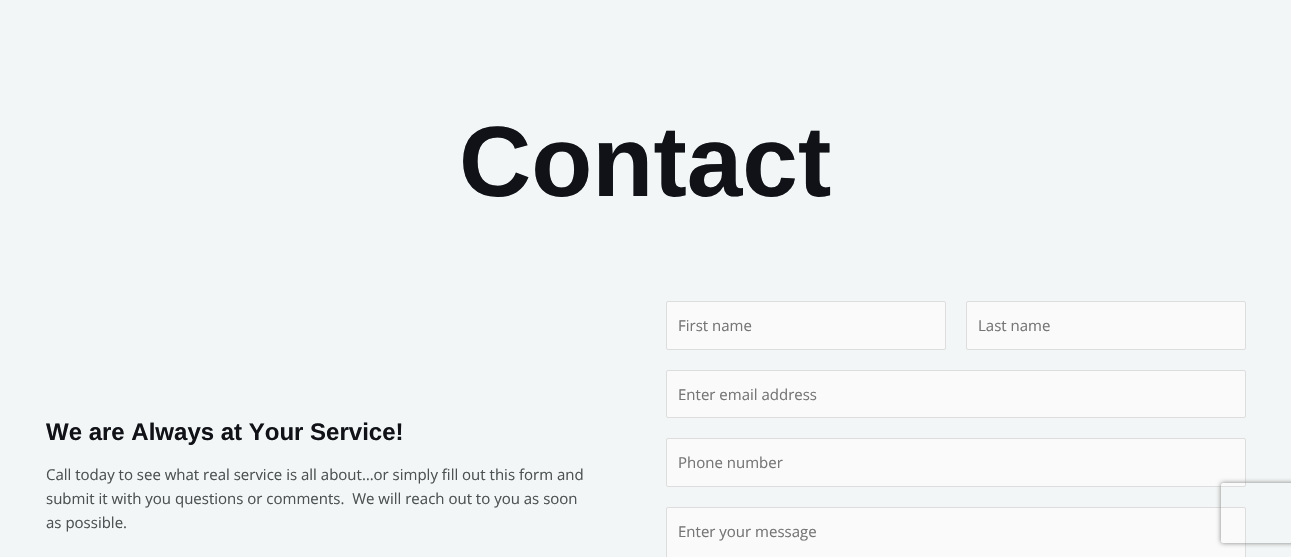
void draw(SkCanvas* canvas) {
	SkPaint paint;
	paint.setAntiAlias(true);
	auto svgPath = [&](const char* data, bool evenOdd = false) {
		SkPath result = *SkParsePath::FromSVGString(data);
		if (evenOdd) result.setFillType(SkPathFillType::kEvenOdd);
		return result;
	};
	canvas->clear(0xfff3f6f6);
	SkFont f1(fontMgr->matchFamilyStyle("Liberation Sans", SkFontStyle::Bold()), 100);
	f1.setSubpixel(true);
	paint.setColor(0xff101218);
	canvas->drawString("Contact", 459, 196, f1, paint);
	SkFont f2(fontMgr->matchFamilyStyle("Liberation Sans", SkFontStyle::Bold()), 24);
	f2.setSubpixel(true);
	canvas->drawString("We are Always at Your Service!", 46, 440, f2, paint);
	SkFont f3(fontMgr->matchFamilyStyle("Open Sans", SkFontStyle::Normal()), 15);
	f3.setSubpixel(true);
	paint.setColor(0xff4c5253);
	canvas->drawString("Call today to see what real service is all about…or simply fill out this form and", 46, 480, f3, paint);
	canvas->drawString("submit it with you questions or comments.  We will reach out to you as soon", 46, 504, f3, paint);
	canvas->drawString("as possible.", 46, 528, f3, paint);
	paint.setColor(0xfffafafa);
	canvas->drawRoundRect(SkRect::MakeXYWH(666.5, 301.5, 279, 48), 1.5, 1.5, paint);
	paint.setStroke(true);
	paint.setStrokeWidth(1);
	paint.setColor(0xffdddddd);
	canvas->drawRoundRect(SkRect::MakeXYWH(666.5, 301.5, 279, 48), 1.5, 1.5, paint);
	paint.setStroke(false);
	paint.setColor(0xff757575);
	canvas->drawString("First name", 678, 331, f3, paint);
	paint.setColor(0xfffafafa);
	canvas->drawRoundRect(SkRect::MakeXYWH(966.5, 301.5, 279, 48), 1.5, 1.5, paint);
	paint.setStroke(true);
	paint.setColor(0xffdddddd);
	canvas->drawRoundRect(SkRect::MakeXYWH(966.5, 301.5, 279, 48), 1.5, 1.5, paint);
	paint.setStroke(false);
	paint.setColor(0xff757575);
	canvas->drawString("Last name", 978, 331, f3, paint);
	paint.setColor(0xfffafafa);
	canvas->drawRoundRect(SkRect::MakeXYWH(666.5, 370.5, 579, 47), 1.5, 1.5, paint);
	paint.setStroke(true);
	paint.setColor(0xffdddddd);
	canvas->drawRoundRect(SkRect::MakeXYWH(666.5, 370.5, 579, 47), 1.5, 1.5, paint);
	paint.setStroke(false);
	paint.setColor(0xff757575);
	canvas->drawString("Enter email address", 678, 400, f3, paint);
	paint.setColor(0xfffafafa);
	canvas->drawRoundRect(SkRect::MakeXYWH(666.5, 438.5, 579, 48), 1.5, 1.5, paint);
	paint.setStroke(true);
	paint.setColor(0xffdddddd);
	canvas->drawRoundRect(SkRect::MakeXYWH(666.5, 438.5, 579, 48), 1.5, 1.5, paint);
	paint.setStroke(false);
	paint.setColor(0xff757575);
	canvas->drawString("Phone number", 678, 468, f3, paint);
	paint.setColor(0xfffafafa);
	canvas->drawRoundRect(SkRect::MakeXYWH(666.5, 507.5, 579, 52), 1.5, 1.5, paint);
	paint.setStroke(true);
	paint.setColor(0xffdddddd);
	canvas->drawRoundRect(SkRect::MakeXYWH(666.5, 507.5, 579, 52), 1.5, 1.5, paint);
	paint.setStroke(false);
	paint.setColor(0xff757575);
	canvas->drawString("Enter your message", 678, 537, f3, paint);
	canvas->save();
	canvas->clipPath(svgPath("M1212 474H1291V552H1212ZM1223 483H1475C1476 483 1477 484 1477 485V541C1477 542 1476 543 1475 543H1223C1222 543 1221 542 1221 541V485C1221 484 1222 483 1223 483Z", true), true);
	paint.setColor(0xff808080);
	paint.setMaskFilter(SkMaskFilter::MakeBlur(kNormal_SkBlurStyle, 2.5));
	canvas->drawRoundRect(SkRect::MakeXYWH(1221, 483, 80, 60), 2, 2, paint);
	paint.setMaskFilter(nullptr);
	canvas->restore();
}
